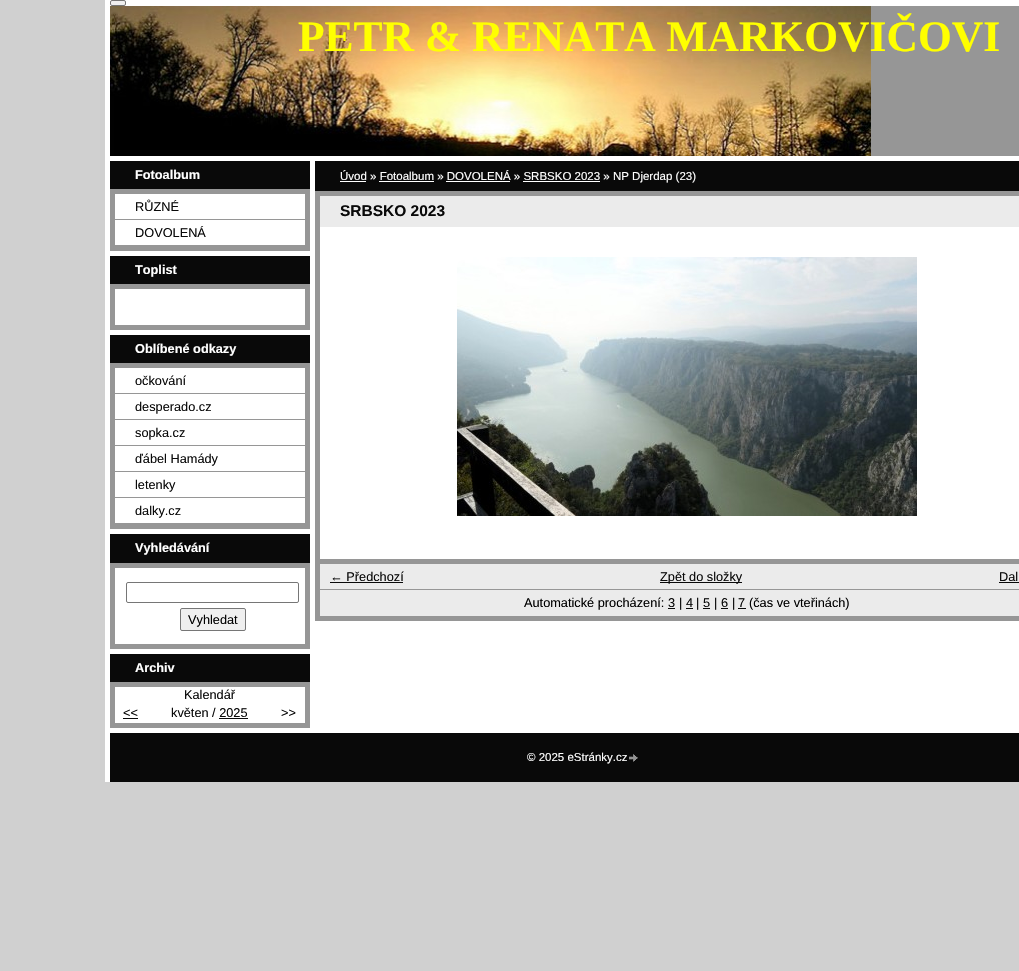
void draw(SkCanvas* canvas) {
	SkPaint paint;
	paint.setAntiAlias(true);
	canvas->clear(0xffd0d0d0);
	paint.setColor(0xffffffff);
	canvas->drawRect(SkRect::MakeXYWH(105, 0, 914, 782), paint);
	paint.setColor(0xffefefef);
	canvas->drawRoundRect(SkRect::MakeXYWH(110.5, 0.5, 15, 5), 1.5, 1.5, paint);
	paint.setStroke(true);
	paint.setStrokeWidth(1);
	paint.setColor(0xff767676);
	canvas->drawRoundRect(SkRect::MakeXYWH(110.5, 0.5, 15, 5), 1.5, 1.5, paint);
	paint.setStroke(false);
	paint.setColor(0xff969696);
	canvas->drawRect(SkRect::MakeXYWH(871, 6, 148, 150), paint);
	canvas->drawImageRect(SkImages::DeferredFromEncodedData(SkData::MakeFromFileName("img1.png")), SkRect::MakeXYWH(110, 6, 761, 150), SkSamplingOptions());
	SkFont f1(fontMgr->matchFamilyStyle("Liberation Serif", SkFontStyle::Bold()), 43.5);
	f1.setSubpixel(true);
	paint.setColor(0xffffff00);
	canvas->drawString("PETR & RENATA MARKOVIČOVI", 298, 51, f1, paint);
	paint.setColor(0xff090909);
	canvas->drawRect(SkRect::MakeXYWH(110, 161, 200, 28), paint);
	SkFont f2(fontMgr->matchFamilyStyle("Liberation Sans", SkFontStyle::Bold()), 12.75);
	f2.setSubpixel(true);
	paint.setColor(0xffffffff);
	canvas->drawString("Fotoalbum", 135, 179, f2, paint);
	paint.setStroke(true);
	paint.setStrokeWidth(5);
	paint.setColor(0xff969696);
	canvas->drawRect(SkRect::MakeXYWH(112.5, 191.5, 195, 57), paint);
	paint.setStroke(false);
	canvas->drawRect(SkRect::MakeXYWH(115, 219, 190, 1), paint);
	SkFont f3(fontMgr->matchFamilyStyle("Liberation Sans", SkFontStyle::Normal()), 12.75);
	f3.setSubpixel(true);
	paint.setColor(0xff090909);
	canvas->drawString("RŮZNÉ", 135, 211, f3, paint);
	paint.setColor(0xff969696);
	canvas->drawRect(SkRect::MakeXYWH(115, 245, 190, 1), paint);
	paint.setColor(0xff090909);
	canvas->drawString("DOVOLENÁ", 135, 237, f3, paint);
	canvas->drawRect(SkRect::MakeXYWH(110, 256, 200, 28), paint);
	paint.setColor(0xffffffff);
	canvas->drawString("Toplist", 135, 274, f2, paint);
	paint.setStroke(true);
	paint.setColor(0xff969696);
	canvas->drawRect(SkRect::MakeXYWH(112.5, 286.5, 195, 41), paint);
	paint.setStroke(false);
	paint.setColor(0xff090909);
	canvas->drawRect(SkRect::MakeXYWH(110, 335, 200, 28), paint);
	paint.setColor(0xffffffff);
	canvas->drawString("Oblíbené odkazy", 135, 353, f2, paint);
	paint.setStroke(true);
	paint.setColor(0xff969696);
	canvas->drawRect(SkRect::MakeXYWH(112.5, 365.5, 195, 161), paint);
	paint.setStroke(false);
	canvas->drawRect(SkRect::MakeXYWH(115, 393, 190, 1), paint);
	paint.setColor(0xff090909);
	canvas->drawString("očkování", 135, 385, f3, paint);
	paint.setColor(0xff969696);
	canvas->drawRect(SkRect::MakeXYWH(115, 419, 190, 1), paint);
	paint.setColor(0xff090909);
	canvas->drawString("desperado.cz", 135, 411, f3, paint);
	paint.setColor(0xff969696);
	canvas->drawRect(SkRect::MakeXYWH(115, 445, 190, 1), paint);
	paint.setColor(0xff090909);
	canvas->drawString("sopka.cz", 135, 437, f3, paint);
	paint.setColor(0xff969696);
	canvas->drawRect(SkRect::MakeXYWH(115, 471, 190, 1), paint);
	paint.setColor(0xff090909);
	canvas->drawString("ďábel Hamády", 135, 463, f3, paint);
	paint.setColor(0xff969696);
	canvas->drawRect(SkRect::MakeXYWH(115, 497, 190, 1), paint);
	paint.setColor(0xff090909);
	canvas->drawString("letenky", 135, 489, f3, paint);
	paint.setColor(0xff969696);
	canvas->drawRect(SkRect::MakeXYWH(115, 523, 190, 1), paint);
	paint.setColor(0xff090909);
	canvas->drawString("dalky.cz", 135, 515, f3, paint);
	canvas->drawRect(SkRect::MakeXYWH(110, 534, 200, 29), paint);
	paint.setColor(0xffffffff);
	canvas->drawString("Vyhledávání", 135, 552, f2, paint);
	paint.setStroke(true);
	paint.setColor(0xff969696);
	canvas->drawRect(SkRect::MakeXYWH(112.5, 565.5, 195, 81), paint);
	paint.setStrokeWidth(1);
	paint.setColor(0xff767676);
	canvas->drawRoundRect(SkRect::MakeXYWH(126.5, 582.5, 172, 20), 1.5, 1.5, paint);
	paint.setStroke(false);
	paint.setColor(0xffefefef);
	canvas->drawRoundRect(SkRect::MakeXYWH(180.5, 608.5, 65, 22), 1.5, 1.5, paint);
	paint.setStroke(true);
	paint.setColor(0xff767676);
	canvas->drawRoundRect(SkRect::MakeXYWH(180.5, 608.5, 65, 22), 1.5, 1.5, paint);
	paint.setStroke(false);
	paint.setColor(0xff000000);
	canvas->drawString("Vyhledat", 188, 624, f3, paint);
	paint.setColor(0xff090909);
	canvas->drawRect(SkRect::MakeXYWH(110, 654, 200, 28), paint);
	paint.setColor(0xffffffff);
	canvas->drawString("Archiv", 135, 672, f2, paint);
	paint.setStroke(true);
	paint.setStrokeWidth(5);
	paint.setColor(0xff969696);
	canvas->drawRect(SkRect::MakeXYWH(112.5, 684.5, 195, 41), paint);
	paint.setStroke(false);
	paint.setColor(0xff090909);
	canvas->drawString("Kalendář", 184, 699, f3, paint);
	canvas->drawString("<<", 123, 717, f3, paint);
	canvas->drawRect(SkRect::MakeXYWH(123, 718, 15, 1), paint);
	canvas->drawString("květen / 2025", 171, 717, f3, paint);
	canvas->drawRect(SkRect::MakeXYWH(219, 718, 29, 1), paint);
	canvas->drawString(">>", 281, 717, f3, paint);
	canvas->drawRect(SkRect::MakeXYWH(315, 161, 704, 30), paint);
	paint.setColor(0xffffffff);
	canvas->drawRect(SkRect::MakeXYWH(340, 181, 26, 1), paint);
	SkFont f4(fontMgr->matchFamilyStyle("Liberation Sans", SkFontStyle::Normal()), 11.5);
	f4.setSubpixel(true);
	canvas->drawString("Úvod » Fotoalbum » DOVOLENÁ » SRBSKO 2023 » NP Djerdap (23)", 340, 180, f4, paint);
	canvas->drawRect(SkRect::MakeXYWH(379, 181, 55, 1), paint);
	canvas->drawRect(SkRect::MakeXYWH(446, 181, 64, 1), paint);
	canvas->drawRect(SkRect::MakeXYWH(523, 181, 77, 1), paint);
	paint.setStroke(true);
	paint.setColor(0xff969696);
	canvas->drawRect(SkRect::MakeXYWH(317.5, 193.5, 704, 425), paint);
	paint.setStroke(false);
	paint.setColor(0xffebebeb);
	canvas->drawRect(SkRect::MakeXYWH(320, 196, 699, 31), paint);
	SkFont f5(fontMgr->matchFamilyStyle("Liberation Sans", SkFontStyle::Bold()), 15.5);
	f5.setSubpixel(true);
	paint.setColor(0xff090909);
	canvas->drawString("SRBSKO 2023", 340, 216, f5, paint);
	canvas->drawImageRect(SkImages::DeferredFromEncodedData(SkData::MakeFromFileName("img2.png")), SkRect::MakeXYWH(457, 257, 460, 259), SkSamplingOptions());
	paint.setColor(0xffebebeb);
	canvas->drawRect(SkRect::MakeXYWH(320, 564, 699, 25), paint);
	paint.setColor(0xff969696);
	canvas->drawRect(SkRect::MakeXYWH(320, 559, 699, 5), paint);
	paint.setColor(0xff090909);
	canvas->drawString("← Předchozí", 330, 581, f3, paint);
	canvas->drawRect(SkRect::MakeXYWH(330, 582, 73, 1), paint);
	canvas->drawRect(SkRect::MakeXYWH(660, 582, 82, 1), paint);
	canvas->drawString("Zpět do složky", 660, 581, f3, paint);
	canvas->drawString("Dal", 999, 581, f3, paint);
	canvas->drawRect(SkRect::MakeXYWH(999, 582, 20, 1), paint);
	paint.setColor(0xffebebeb);
	canvas->drawRect(SkRect::MakeXYWH(320, 590, 699, 26), paint);
	paint.setColor(0xff969696);
	canvas->drawRect(SkRect::MakeXYWH(320, 589, 699, 1), paint);
	paint.setColor(0xff000000);
	canvas->drawString("Automatické procházení:", 524, 607, f3, paint);
	paint.setColor(0xff090909);
	canvas->drawString("3", 668, 607, f3, paint);
	canvas->drawRect(SkRect::MakeXYWH(668, 608, 7, 1), paint);
	paint.setColor(0xff000000);
	canvas->drawString("|", 679, 607, f3, paint);
	paint.setColor(0xff090909);
	canvas->drawString("4", 686, 607, f3, paint);
	canvas->drawRect(SkRect::MakeXYWH(686, 608, 7, 1), paint);
	paint.setColor(0xff000000);
	canvas->drawString("|", 696, 607, f3, paint);
	paint.setColor(0xff090909);
	canvas->drawString("5", 703, 607, f3, paint);
	canvas->drawRect(SkRect::MakeXYWH(703, 608, 7, 1), paint);
	paint.setColor(0xff000000);
	canvas->drawString("|", 714, 607, f3, paint);
	paint.setColor(0xff090909);
	canvas->drawString("6", 721, 607, f3, paint);
	canvas->drawRect(SkRect::MakeXYWH(721, 608, 7, 1), paint);
	paint.setColor(0xff000000);
	canvas->drawString("|", 732, 607, f3, paint);
	paint.setColor(0xff090909);
	canvas->drawString("7", 738, 607, f3, paint);
	canvas->drawRect(SkRect::MakeXYWH(738, 608, 8, 1), paint);
	paint.setColor(0xff000000);
	canvas->drawString("(čas ve vteřinách)", 749, 607, f3, paint);
	paint.setColor(0xff090909);
	canvas->drawRect(SkRect::MakeXYWH(110, 733, 909, 49), paint);
	paint.setColor(0xffffffff);
	canvas->drawString("© 2025 eStránky.cz", 527, 761, f4, paint);
	canvas->drawImageRect(SkImages::DeferredFromEncodedData(SkData::MakeFromFileName("img3.png")), SkRect::MakeXYWH(629, 754, 9, 8), SkSamplingOptions());
}
